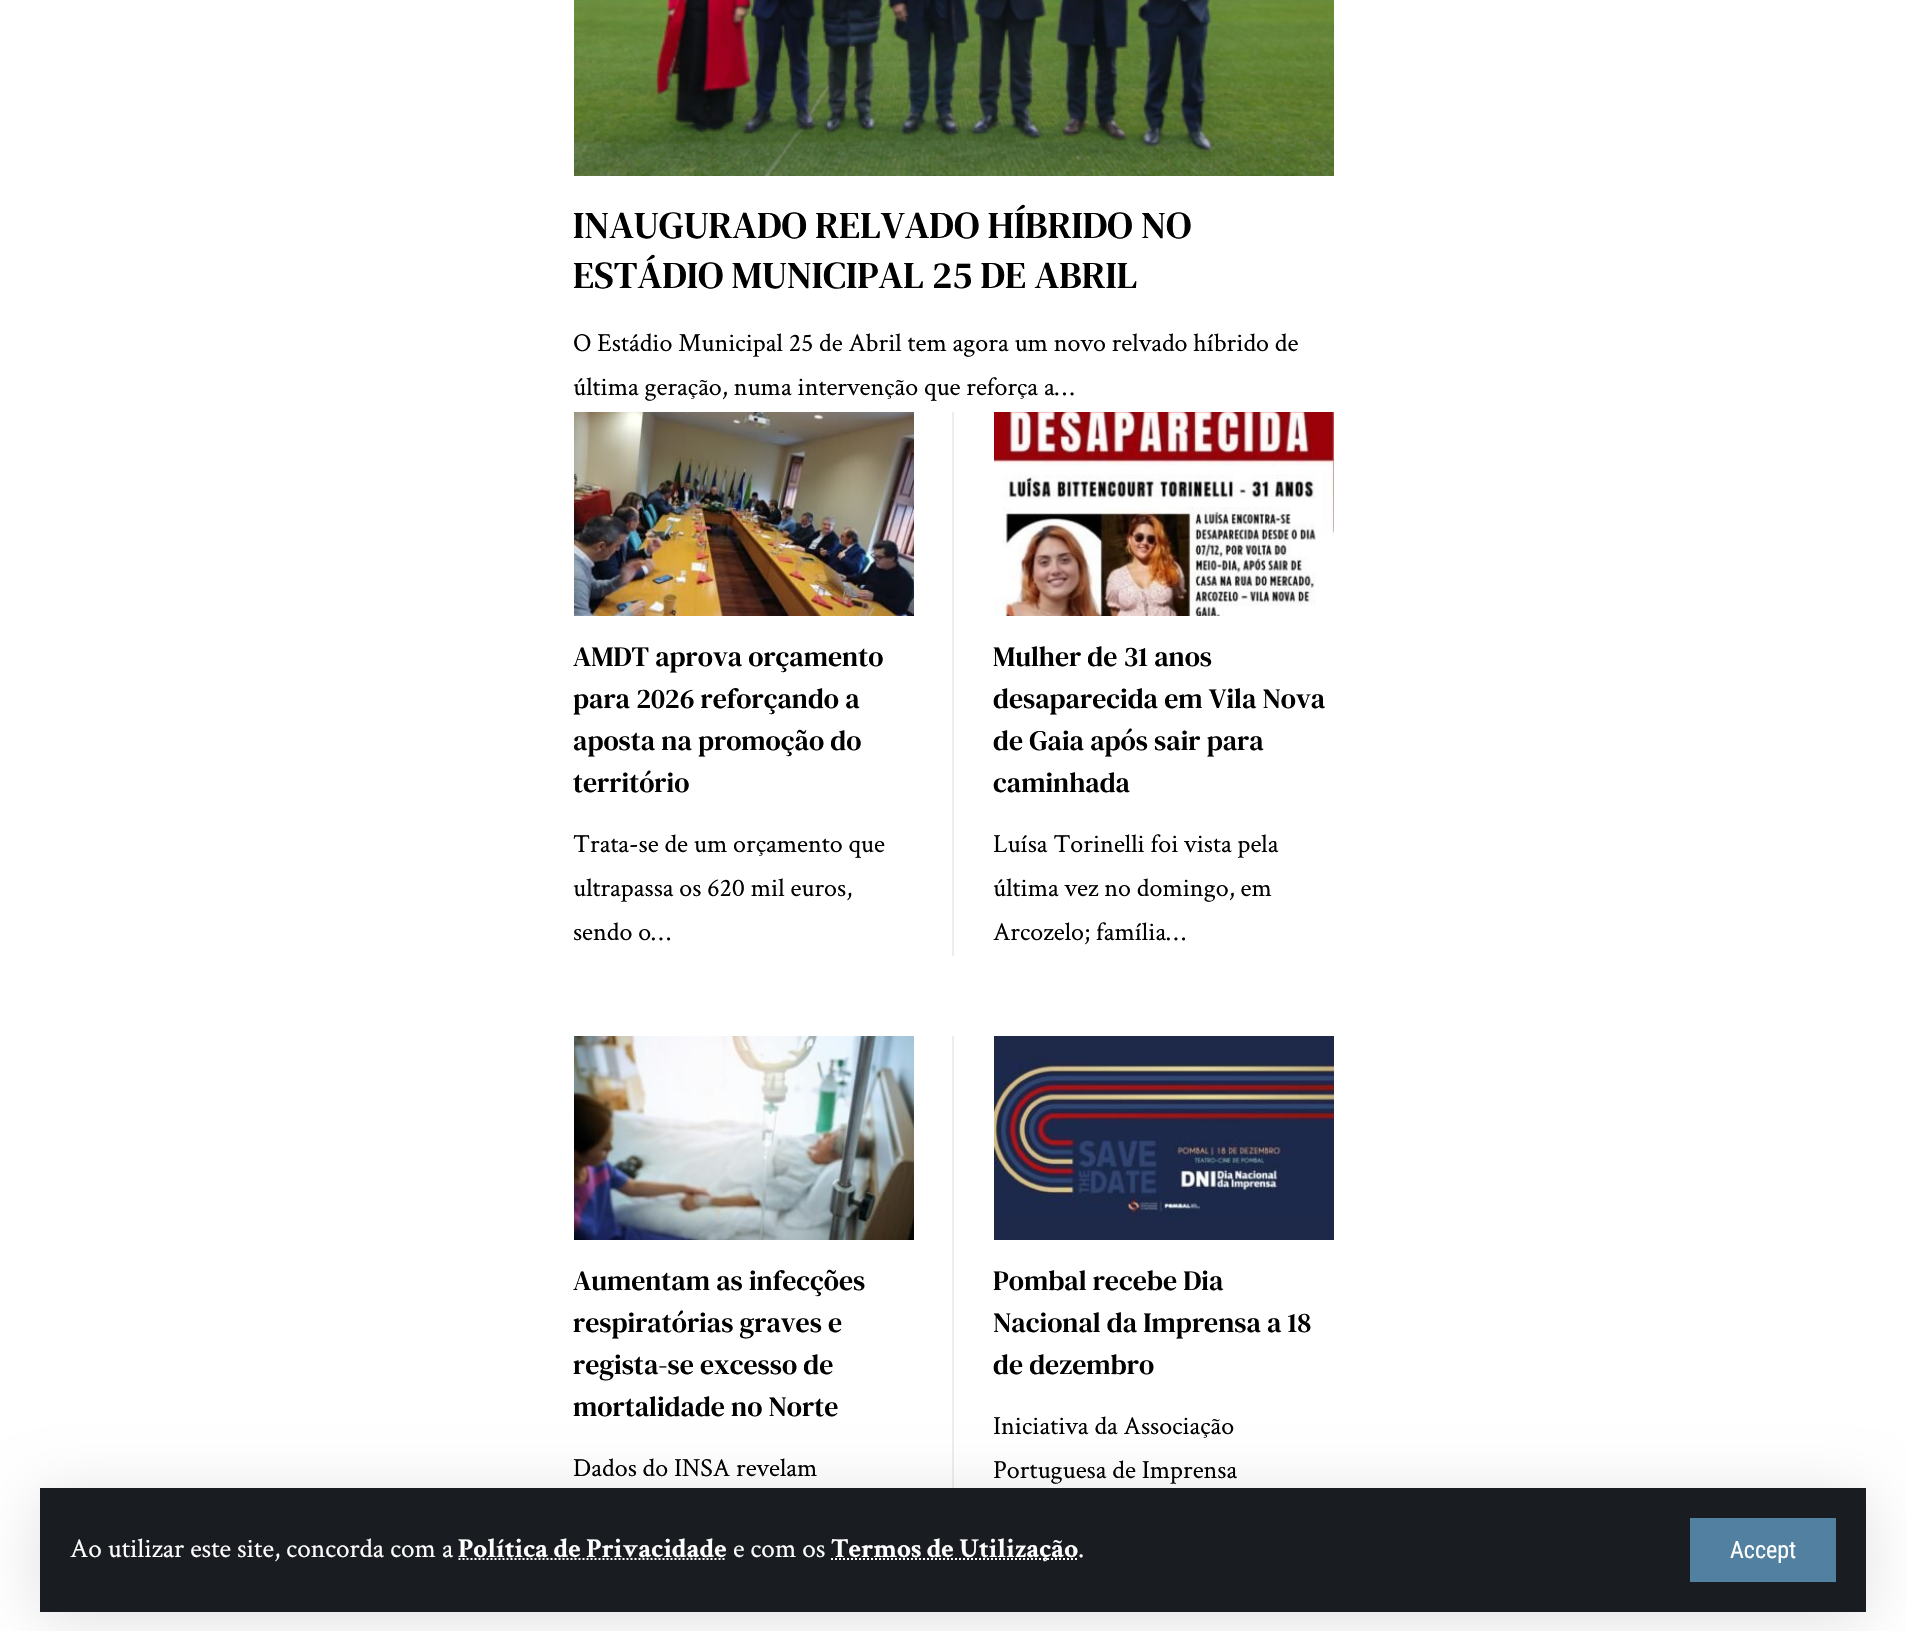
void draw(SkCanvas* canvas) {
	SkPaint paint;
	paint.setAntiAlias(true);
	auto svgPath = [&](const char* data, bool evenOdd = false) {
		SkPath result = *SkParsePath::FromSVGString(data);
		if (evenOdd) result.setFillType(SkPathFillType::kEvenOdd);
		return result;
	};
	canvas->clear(0xffffffff);
	canvas->drawImageRect(SkImages::DeferredFromEncodedData(SkData::MakeFromFileName("img1.png")), SkRect::MakeXYWH(574, 0, 760, 176), SkSamplingOptions());
	SkFont f1(fontMgr->matchFamilyStyle("DM Serif Text", SkFontStyle::Normal()), 38);
	f1.setSubpixel(true);
	paint.setColor(0xff000000);
	canvas->drawString("INAUGURADO RELVADO HÍBRIDO NO", 573, 238, f1, paint);
	canvas->drawString("ESTÁDIO MUNICIPAL 25 DE ABRIL", 573, 288, f1, paint);
	SkFont f2(fontMgr->matchFamilyStyle("Crimson Text", SkFontStyle::Normal()), 26);
	f2.setSubpixel(true);
	canvas->drawString("O Estádio Municipal 25 de Abril tem agora um novo relvado híbrido de", 573, 351, f2, paint);
	canvas->drawString("última geração, numa intervenção que reforça a…", 573, 395, f2, paint);
	canvas->drawImageRect(SkImages::DeferredFromEncodedData(SkData::MakeFromFileName("img2.png")), SkRect::MakeXYWH(574, 412, 340, 204), SkSamplingOptions());
	paint.setColor(0xffededed);
	canvas->drawRect(SkRect::MakeXYWH(952, 412, 2, 544), paint);
	SkFont f3(fontMgr->matchFamilyStyle("DM Serif Text", SkFontStyle::Normal()), 28);
	f3.setSubpixel(true);
	paint.setColor(0xff000000);
	canvas->drawString("AMDT aprova orçamento", 573, 666, f3, paint);
	canvas->drawString("para 2026 reforçando a", 573, 708, f3, paint);
	canvas->drawString("aposta na promoção do", 573, 750, f3, paint);
	canvas->drawString("território", 573, 792, f3, paint);
	canvas->drawString("Trata-se de um orçamento que", 573, 852, f2, paint);
	canvas->drawString("ultrapassa os 620 mil euros,", 573, 896, f2, paint);
	canvas->drawString("sendo o…", 573, 940, f2, paint);
	canvas->drawImageRect(SkImages::DeferredFromEncodedData(SkData::MakeFromFileName("img3.png")), SkRect::MakeXYWH(994, 412, 340, 204), SkSamplingOptions());
	canvas->drawString("Mulher de 31 anos", 993, 666, f3, paint);
	canvas->drawString("desaparecida em Vila Nova", 993, 708, f3, paint);
	canvas->drawString("de Gaia após sair para", 993, 750, f3, paint);
	canvas->drawString("caminhada", 993, 792, f3, paint);
	canvas->drawString("Luísa Torinelli foi vista pela", 993, 852, f2, paint);
	canvas->drawString("última vez no domingo, em", 993, 896, f2, paint);
	canvas->drawString("Arcozelo; família…", 993, 940, f2, paint);
	canvas->drawImageRect(SkImages::DeferredFromEncodedData(SkData::MakeFromFileName("img4.png")), SkRect::MakeXYWH(574, 1036, 340, 204), SkSamplingOptions());
	paint.setColor(0xffededed);
	canvas->drawRect(SkRect::MakeXYWH(952, 1036, 2, 452), paint);
	paint.setColor(0xff000000);
	canvas->drawString("Aumentam as infecções", 573, 1290, f3, paint);
	canvas->drawString("respiratórias graves e", 573, 1332, f3, paint);
	canvas->drawString("regista-se excesso de", 573, 1374, f3, paint);
	canvas->drawString("mortalidade no Norte", 573, 1416, f3, paint);
	canvas->drawString("Dados do INSA revelam", 573, 1476, f2, paint);
	canvas->drawImageRect(SkImages::DeferredFromEncodedData(SkData::MakeFromFileName("img5.png")), SkRect::MakeXYWH(994, 1036, 340, 204), SkSamplingOptions());
	canvas->drawString("Pombal recebe Dia", 993, 1290, f3, paint);
	canvas->drawString("Nacional da Imprensa a 18", 993, 1332, f3, paint);
	canvas->drawString("de dezembro", 993, 1374, f3, paint);
	canvas->drawString("Iniciativa da Associação", 993, 1434, f2, paint);
	canvas->drawString("Portuguesa de Imprensa", 993, 1478, f2, paint);
	paint.setColor(0x1f000000);
	paint.setMaskFilter(SkMaskFilter::MakeBlur(kNormal_SkBlurStyle, 30));
	canvas->drawRect(SkRect::MakeXYWH(40, 1496, 1826, 124), paint);
	paint.setMaskFilter(nullptr);
	paint.setColor(0xff191c20);
	canvas->drawRect(SkRect::MakeXYWH(40, 1488, 1826, 124), paint);
	SkFont f4(fontMgr->matchFamilyStyle("Crimson Text", SkFontStyle::Normal()), 27.25);
	f4.setSubpixel(true);
	paint.setColor(0xffffffff);
	canvas->drawString("Ao utilizar este site, concorda com a", 70, 1557, f4, paint);
	SkFont f5(fontMgr->matchFamilyStyle("Crimson Text", SkFontStyle::Bold()), 27.25);
	f5.setSubpixel(true);
	canvas->drawString("Política de Privacidade", 458, 1557, f5, paint);
	paint.setStroke(true);
	paint.setStrokeWidth(2);
	paint.setPathEffect(SkDashPathEffect::Make({{2, 2}}, 0));
	canvas->drawPath(svgPath("M458.5 1559H726.5"), paint);
	paint.setPathEffect(nullptr);
	paint.setStroke(false);
	canvas->drawString("e com os", 733, 1557, f4, paint);
	paint.setStroke(true);
	paint.setPathEffect(SkDashPathEffect::Make({{2, 2}}, 0));
	canvas->drawPath(svgPath("M831 1559H1077.5"), paint);
	paint.setPathEffect(nullptr);
	paint.setStroke(false);
	canvas->drawString("Termos de Utilização", 831, 1557, f5, paint);
	canvas->drawString(".", 1078, 1557, f4, paint);
	paint.setColor(0xff5280a0);
	canvas->drawRect(SkRect::MakeXYWH(1690, 1518, 146, 64), paint);
	SkFont f6(fontMgr->matchFamilyStyle("Roboto Condensed", SkFontStyle::Normal()), 24);
	f6.setSubpixel(true);
	paint.setColor(0xffffffff);
	canvas->drawString("Accept", 1730, 1558, f6, paint);
}
